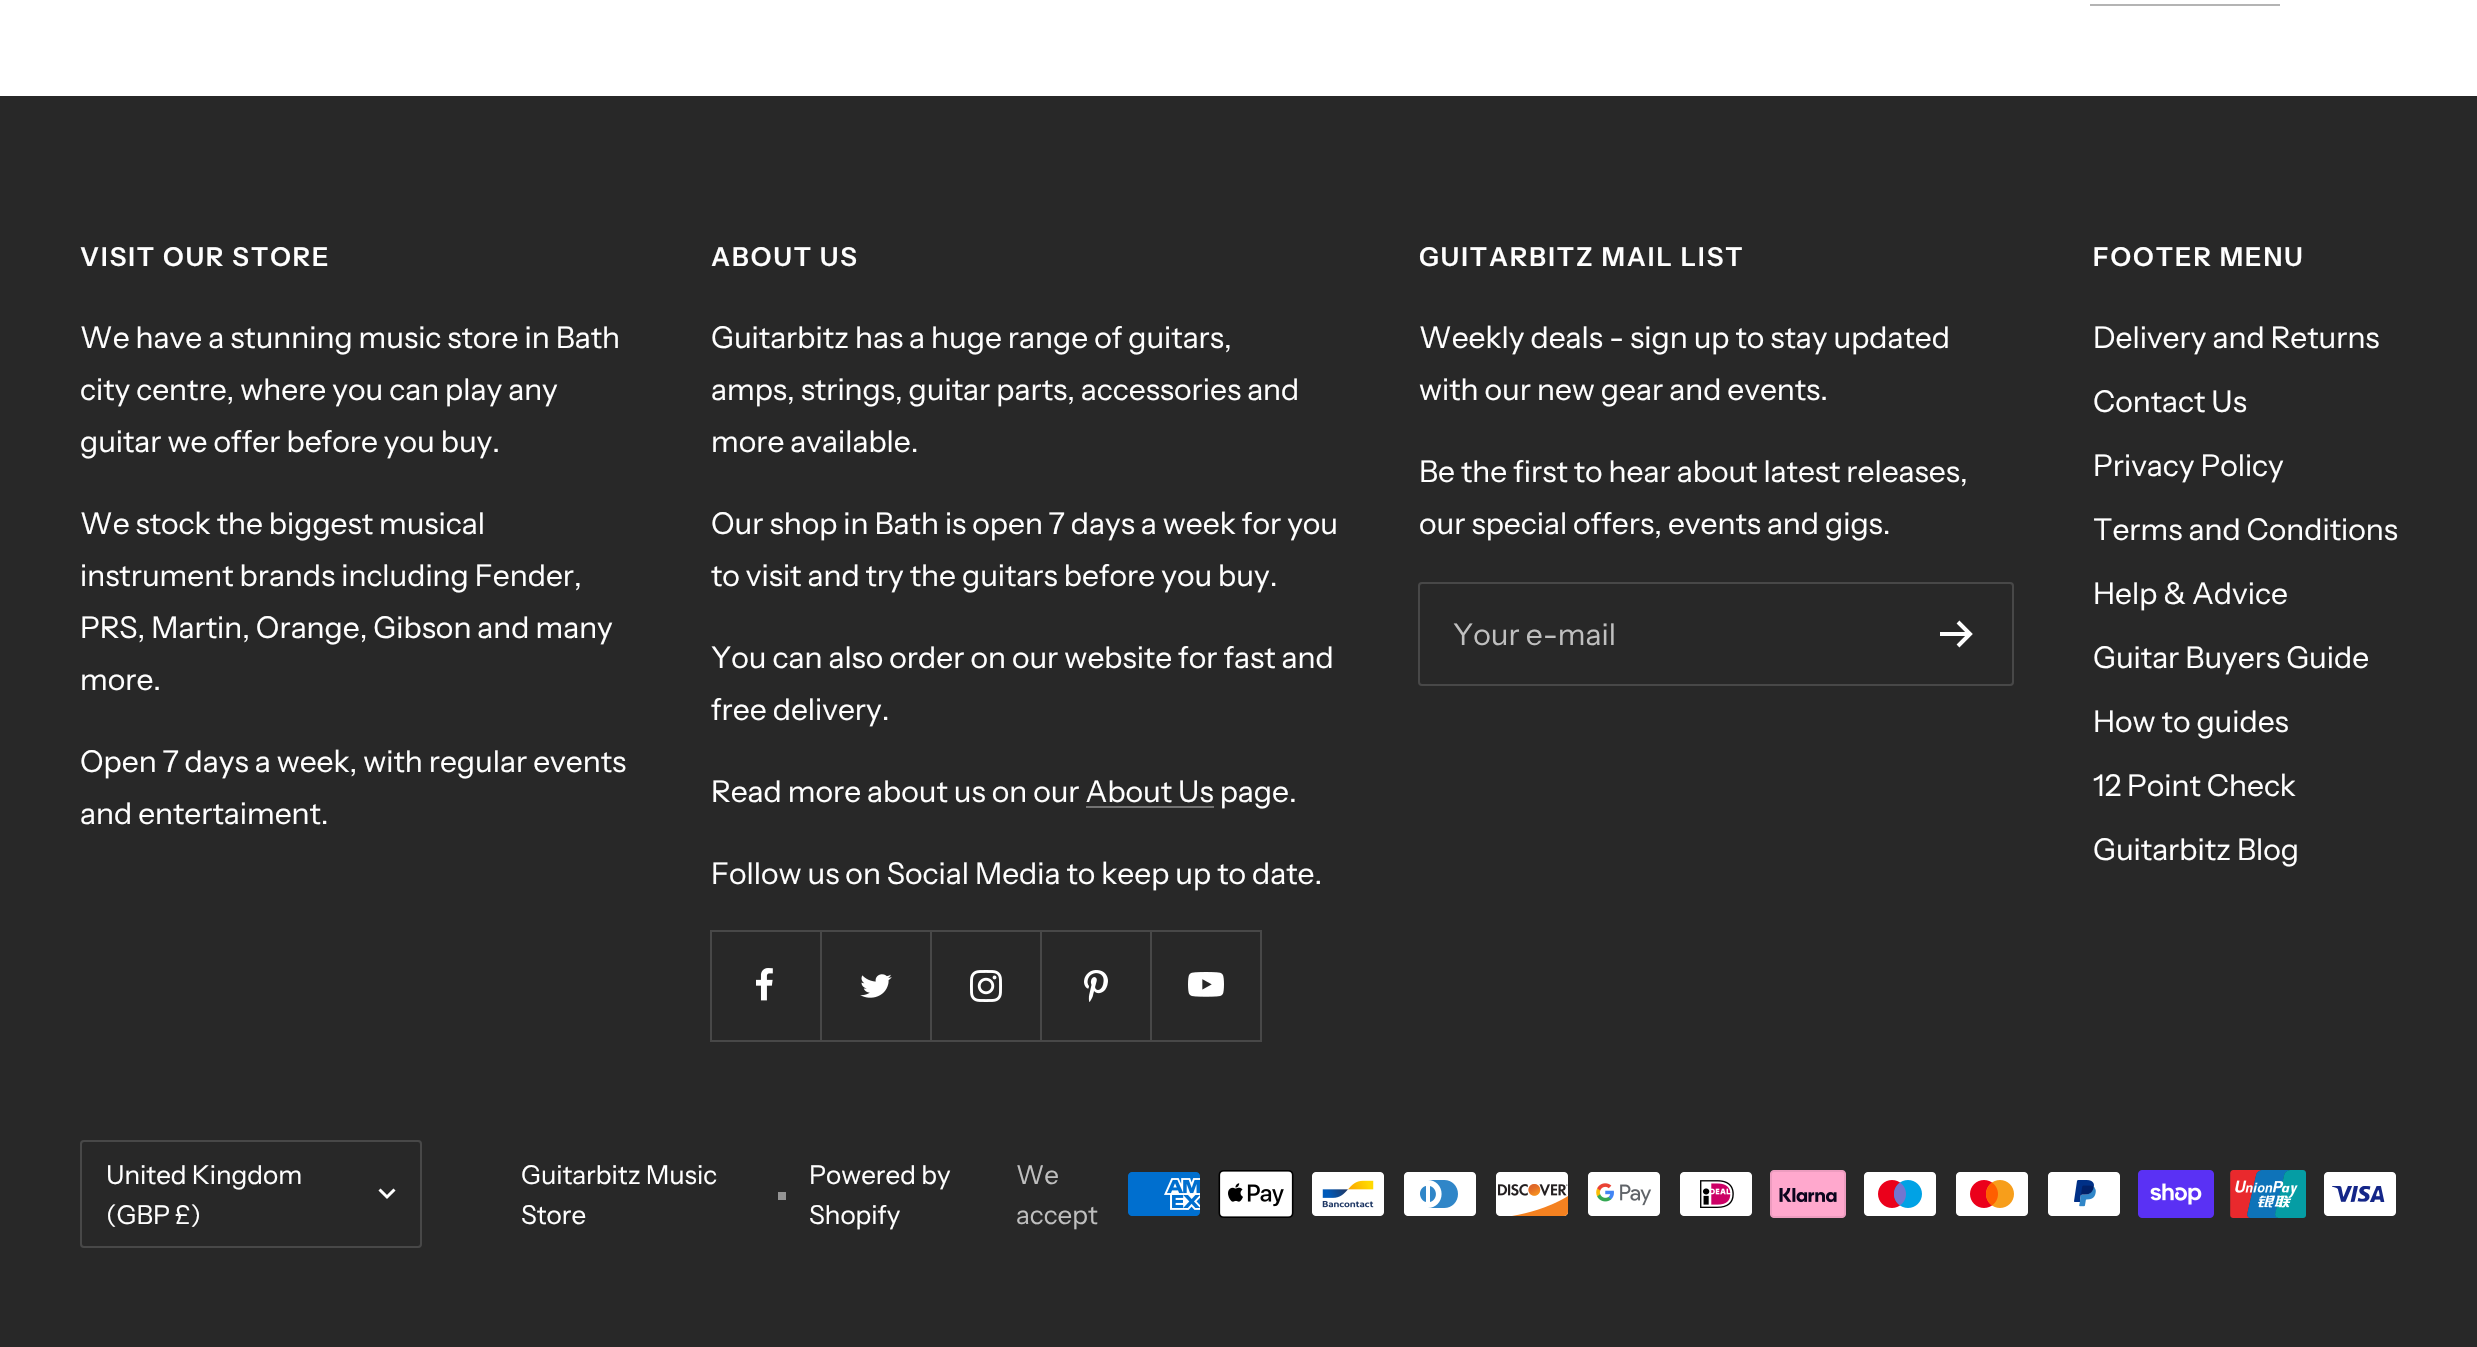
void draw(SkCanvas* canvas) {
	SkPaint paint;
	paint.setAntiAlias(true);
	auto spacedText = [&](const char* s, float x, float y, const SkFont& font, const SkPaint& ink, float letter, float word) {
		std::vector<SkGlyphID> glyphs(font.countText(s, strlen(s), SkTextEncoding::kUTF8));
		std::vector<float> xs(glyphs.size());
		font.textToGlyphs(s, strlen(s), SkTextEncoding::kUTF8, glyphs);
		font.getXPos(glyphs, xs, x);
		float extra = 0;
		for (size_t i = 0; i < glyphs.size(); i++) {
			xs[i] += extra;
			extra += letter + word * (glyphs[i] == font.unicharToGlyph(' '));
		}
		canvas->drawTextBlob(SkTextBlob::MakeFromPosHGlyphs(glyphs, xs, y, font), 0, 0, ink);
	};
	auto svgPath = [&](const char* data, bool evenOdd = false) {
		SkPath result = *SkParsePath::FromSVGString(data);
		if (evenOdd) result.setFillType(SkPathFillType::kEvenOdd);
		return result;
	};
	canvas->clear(0xffffffff);
	paint.setColor(0xffb4b4b4);
	canvas->drawRect(SkRect::MakeXYWH(2090, 4, 190, 2), paint);
	paint.setColor(0xff282828);
	canvas->drawRect(SkRect::MakeXYWH(0, 96, 2477, 1251), paint);
	SkFont f1(fontMgr->matchFamilyStyle("Instrument Sans", SkFontStyle(600, SkFontStyle::kNormal_Width, SkFontStyle::kUpright_Slant)), 26);
	f1.setSubpixel(true);
	paint.setColor(0xffffffff);
	spacedText("VISIT OUR STORE", 80, 266, f1, paint, 2, 0);
	SkFont f2(fontMgr->matchFamilyStyle("Instrument Sans", SkFontStyle::Normal()), 30);
	f2.setSubpixel(true);
	canvas->drawString("We have a stunning music store in Bath", 80, 348, f2, paint);
	canvas->drawString("city centre, where you can play any", 80, 400, f2, paint);
	canvas->drawString("guitar we offer before you buy.", 80, 452, f2, paint);
	canvas->drawString("We stock the biggest musical", 80, 534, f2, paint);
	canvas->drawString("instrument brands including Fender,", 80, 586, f2, paint);
	canvas->drawString("PRS, Martin, Orange, Gibson and many", 80, 638, f2, paint);
	canvas->drawString("more.", 80, 690, f2, paint);
	canvas->drawString("Open 7 days a week, with regular events", 80, 772, f2, paint);
	canvas->drawString("and entertaiment.", 80, 824, f2, paint);
	spacedText("ABOUT US", 711, 266, f1, paint, 2, 0);
	canvas->drawString("Guitarbitz has a huge range of guitars,", 711, 348, f2, paint);
	canvas->drawString("amps, strings, guitar parts, accessories and", 711, 400, f2, paint);
	canvas->drawString("more available.", 711, 452, f2, paint);
	canvas->drawString("Our shop in Bath is open 7 days a week for you", 711, 534, f2, paint);
	canvas->drawString("to visit and try the guitars before you buy.", 711, 586, f2, paint);
	canvas->drawString("You can also order on our website for fast and", 711, 668, f2, paint);
	canvas->drawString("free delivery.", 711, 720, f2, paint);
	canvas->drawString("Read more about us on our About Us page.", 711, 802, f2, paint);
	paint.setColor(0xff737373);
	canvas->drawRect(SkRect::MakeXYWH(1086, 806, 128, 2), paint);
	paint.setColor(0xffffffff);
	canvas->drawString("Follow us on Social Media to keep up to date.", 711, 884, f2, paint);
	paint.setColor(0xff484848);
	canvas->drawPath(svgPath("M712 1040V1042H822V932H820V1040Z"), paint);
	canvas->drawRect(SkRect::MakeXYWH(710, 1040, 2, 2), paint);
	canvas->drawRect(SkRect::MakeXYWH(710, 930, 112, 2), paint);
	canvas->drawRect(SkRect::MakeXYWH(710, 930, 2, 110), paint);
	canvas->drawImageRect(SkImages::DeferredFromEncodedData(SkData::MakeFromFileName("img1.png")), SkRect::MakeXYWH(756, 968, 17, 33), SkSamplingOptions());
	canvas->drawPath(svgPath("M822 1040V1042H932V932H930V1040Z"), paint);
	canvas->drawRect(SkRect::MakeXYWH(820, 930, 112, 2), paint);
	canvas->drawImageRect(SkImages::DeferredFromEncodedData(SkData::MakeFromFileName("img2.png")), SkRect::MakeXYWH(860, 974, 32, 24), SkSamplingOptions());
	canvas->drawPath(svgPath("M932 1040V1042H1042V932H1040V1040Z"), paint);
	canvas->drawRect(SkRect::MakeXYWH(930, 930, 112, 2), paint);
	canvas->drawImageRect(SkImages::DeferredFromEncodedData(SkData::MakeFromFileName("img3.png")), SkRect::MakeXYWH(970, 970, 32, 32), SkSamplingOptions());
	canvas->drawPath(svgPath("M1042 1040V1042H1152V932H1150V1040Z"), paint);
	canvas->drawRect(SkRect::MakeXYWH(1040, 930, 112, 2), paint);
	canvas->drawImageRect(SkImages::DeferredFromEncodedData(SkData::MakeFromFileName("img4.png")), SkRect::MakeXYWH(1084, 970, 24, 32), SkSamplingOptions());
	canvas->drawPath(svgPath("M1152 1040V1042H1262V932H1260V1040Z"), paint);
	canvas->drawRect(SkRect::MakeXYWH(1150, 930, 112, 2), paint);
	canvas->drawImageRect(SkImages::DeferredFromEncodedData(SkData::MakeFromFileName("img5.png")), SkRect::MakeXYWH(1188, 972, 36, 25), SkSamplingOptions());
	paint.setColor(0xffffffff);
	spacedText("GUITARBITZ MAIL LIST", 1419, 266, f1, paint, 2, 0);
	canvas->drawString("Weekly deals - sign up to stay updated", 1419, 348, f2, paint);
	canvas->drawString("with our new gear and events.", 1419, 400, f2, paint);
	canvas->drawString("Be the first to hear about latest releases,", 1419, 482, f2, paint);
	canvas->drawString("our special offers, events and gigs.", 1419, 534, f2, paint);
	paint.setStroke(true);
	paint.setStrokeWidth(2);
	paint.setColor(0xff484848);
	canvas->drawRoundRect(SkRect::MakeXYWH(1419, 583, 594, 102), 3, 3, paint);
	paint.setStroke(false);
	paint.setColor(0xffbfbfbf);
	canvas->drawString("Your e-mail", 1453, 645, f2, paint);
	paint.setStroke(true);
	paint.setStrokeWidth(4);
	paint.setColor(0xffffffff);
	canvas->drawPath(svgPath("M1940 634H1970M1958 622L1970 634L1958 646"), paint);
	paint.setStroke(false);
	spacedText("FOOTER MENU", 2093, 266, f1, paint, 2, 0);
	canvas->drawString("Delivery and Returns", 2093, 348, f2, paint);
	canvas->drawString("Contact Us", 2093, 412, f2, paint);
	canvas->drawString("Privacy Policy", 2093, 476, f2, paint);
	canvas->drawString("Terms and Conditions", 2093, 540, f2, paint);
	canvas->drawString("Help & Advice", 2093, 604, f2, paint);
	canvas->drawString("Guitar Buyers Guide", 2093, 668, f2, paint);
	canvas->drawString("How to guides", 2093, 732, f2, paint);
	canvas->drawString("12 Point Check", 2093, 796, f2, paint);
	canvas->drawString("Guitarbitz Blog", 2093, 860, f2, paint);
	paint.setStroke(true);
	paint.setStrokeWidth(2);
	paint.setColor(0xff484848);
	canvas->drawRoundRect(SkRect::MakeXYWH(81, 1141, 340, 106), 3, 3, paint);
	SkFont f3(fontMgr->matchFamilyStyle("Instrument Sans", SkFontStyle::Normal()), 26);
	f3.setSubpixel(true);
	paint.setStroke(false);
	paint.setColor(0xffffffff);
	canvas->drawString("United Kingdom", 106, 1184, f3, paint);
	paint.setStroke(true);
	paint.setStrokeWidth(3);
	canvas->drawPath(svgPath("M379.5 1189.5L387 1197L394.5 1189.5"), paint);
	paint.setStroke(false);
	canvas->drawString("(GBP £)", 106, 1224, f3, paint);
	canvas->drawString("Guitarbitz Music", 521, 1184, f3, paint);
	paint.setColor(0xff949494);
	canvas->drawRect(SkRect::MakeXYWH(778, 1192, 8, 8), paint);
	paint.setColor(0xffffffff);
	canvas->drawString("Powered by", 809, 1184, f3, paint);
	canvas->drawString("Shopify", 809, 1224, f3, paint);
	canvas->drawString("Store", 521, 1224, f3, paint);
	paint.setColor(0xffbfbfbf);
	canvas->drawString("We", 1016, 1184, f3, paint);
	canvas->drawString("accept", 1016, 1224, f3, paint);
	canvas->drawImageRect(SkImages::DeferredFromEncodedData(SkData::MakeFromFileName("img6.png")), SkRect::MakeXYWH(1128, 1172, 72, 44), SkSamplingOptions());
	canvas->drawImageRect(SkImages::DeferredFromEncodedData(SkData::MakeFromFileName("img7.png")), SkRect::MakeXYWH(1218, 1170, 76, 48), SkSamplingOptions());
	canvas->drawImageRect(SkImages::DeferredFromEncodedData(SkData::MakeFromFileName("img8.png")), SkRect::MakeXYWH(1312, 1172, 72, 44), SkSamplingOptions());
	canvas->drawImageRect(SkImages::DeferredFromEncodedData(SkData::MakeFromFileName("img9.png")), SkRect::MakeXYWH(1404, 1172, 72, 44), SkSamplingOptions());
	canvas->drawImageRect(SkImages::DeferredFromEncodedData(SkData::MakeFromFileName("img10.png")), SkRect::MakeXYWH(1496, 1172, 73, 44), SkSamplingOptions());
	canvas->drawImageRect(SkImages::DeferredFromEncodedData(SkData::MakeFromFileName("img11.png")), SkRect::MakeXYWH(1588, 1172, 72, 44), SkSamplingOptions());
	canvas->drawImageRect(SkImages::DeferredFromEncodedData(SkData::MakeFromFileName("img12.png")), SkRect::MakeXYWH(1680, 1172, 72, 44), SkSamplingOptions());
	canvas->drawImageRect(SkImages::DeferredFromEncodedData(SkData::MakeFromFileName("img13.png")), SkRect::MakeXYWH(1770, 1170, 76, 48), SkSamplingOptions());
	canvas->drawImageRect(SkImages::DeferredFromEncodedData(SkData::MakeFromFileName("img14.png")), SkRect::MakeXYWH(1864, 1172, 72, 44), SkSamplingOptions());
	canvas->drawImageRect(SkImages::DeferredFromEncodedData(SkData::MakeFromFileName("img15.png")), SkRect::MakeXYWH(1956, 1172, 72, 44), SkSamplingOptions());
	canvas->drawImageRect(SkImages::DeferredFromEncodedData(SkData::MakeFromFileName("img16.png")), SkRect::MakeXYWH(2048, 1172, 72, 44), SkSamplingOptions());
	canvas->drawImageRect(SkImages::DeferredFromEncodedData(SkData::MakeFromFileName("img17.png")), SkRect::MakeXYWH(2138, 1170, 76, 48), SkSamplingOptions());
	canvas->drawImageRect(SkImages::DeferredFromEncodedData(SkData::MakeFromFileName("img18.png")), SkRect::MakeXYWH(2230, 1170, 76, 48), SkSamplingOptions());
	canvas->drawImageRect(SkImages::DeferredFromEncodedData(SkData::MakeFromFileName("img19.png")), SkRect::MakeXYWH(2324, 1172, 72, 44), SkSamplingOptions());
}
